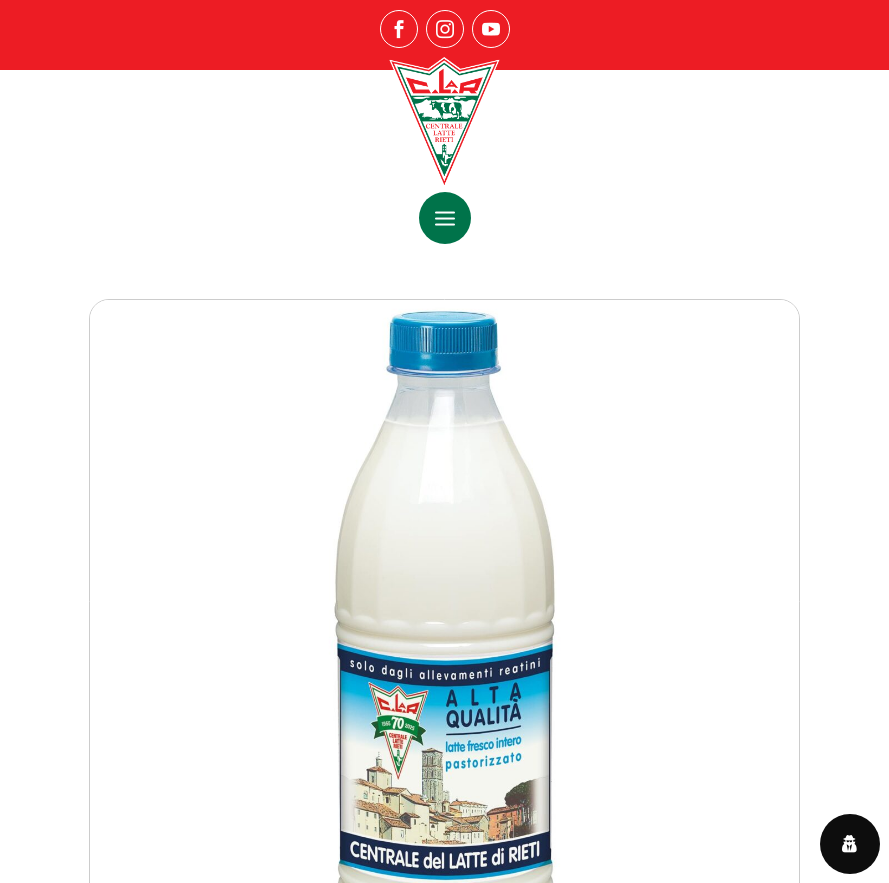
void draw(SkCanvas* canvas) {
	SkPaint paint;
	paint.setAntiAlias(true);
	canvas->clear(0xffffffff);
	paint.setColor(0xffed1c24);
	canvas->drawRect(SkRect::MakeXYWH(0, 0, 889, 70), paint);
	paint.setStroke(true);
	paint.setStrokeWidth(1);
	paint.setColor(0xffffffff);
	canvas->drawCircle(399, 29, 18.5, paint);
	canvas->drawImageRect(SkImages::DeferredFromEncodedData(SkData::MakeFromFileName("img1.png")), SkRect::MakeXYWH(394, 20, 10, 19), SkSamplingOptions());
	canvas->drawCircle(445, 29, 18.5, paint);
	canvas->drawImageRect(SkImages::DeferredFromEncodedData(SkData::MakeFromFileName("img2.png")), SkRect::MakeXYWH(436, 20, 18, 19), SkSamplingOptions());
	canvas->drawCircle(491, 29, 18.5, paint);
	canvas->drawImageRect(SkImages::DeferredFromEncodedData(SkData::MakeFromFileName("img3.png")), SkRect::MakeXYWH(482, 22, 18, 14), SkSamplingOptions());
	canvas->drawImageRect(SkImages::DeferredFromEncodedData(SkData::MakeFromFileName("img4.png")), SkRect::MakeXYWH(389, 57, 111, 128), SkSamplingOptions());
	paint.setStroke(false);
	paint.setColor(0xff00734a);
	canvas->drawCircle(445, 218, 26, paint);
	canvas->drawImageRect(SkImages::DeferredFromEncodedData(SkData::MakeFromFileName("img5.png")), SkRect::MakeXYWH(435, 211, 20, 15), SkSamplingOptions());
	paint.setStroke(true);
	paint.setColor(0xffcccccc);
	canvas->drawRoundRect(SkRect::MakeXYWH(89.5, 299.5, 710, 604), 19.5, 19.5, paint);
	canvas->drawImageRect(SkImages::DeferredFromEncodedData(SkData::MakeFromFileName("img6.png")), SkRect::MakeXYWH(90, 300, 709, 583), SkSamplingOptions());
	paint.setStroke(false);
	paint.setColor(0xff0d0d0d);
	canvas->drawCircle(850, 844, 30, paint);
	canvas->drawImageRect(SkImages::DeferredFromEncodedData(SkData::MakeFromFileName("img7.png")), SkRect::MakeXYWH(842, 835, 15, 18), SkSamplingOptions());
}
